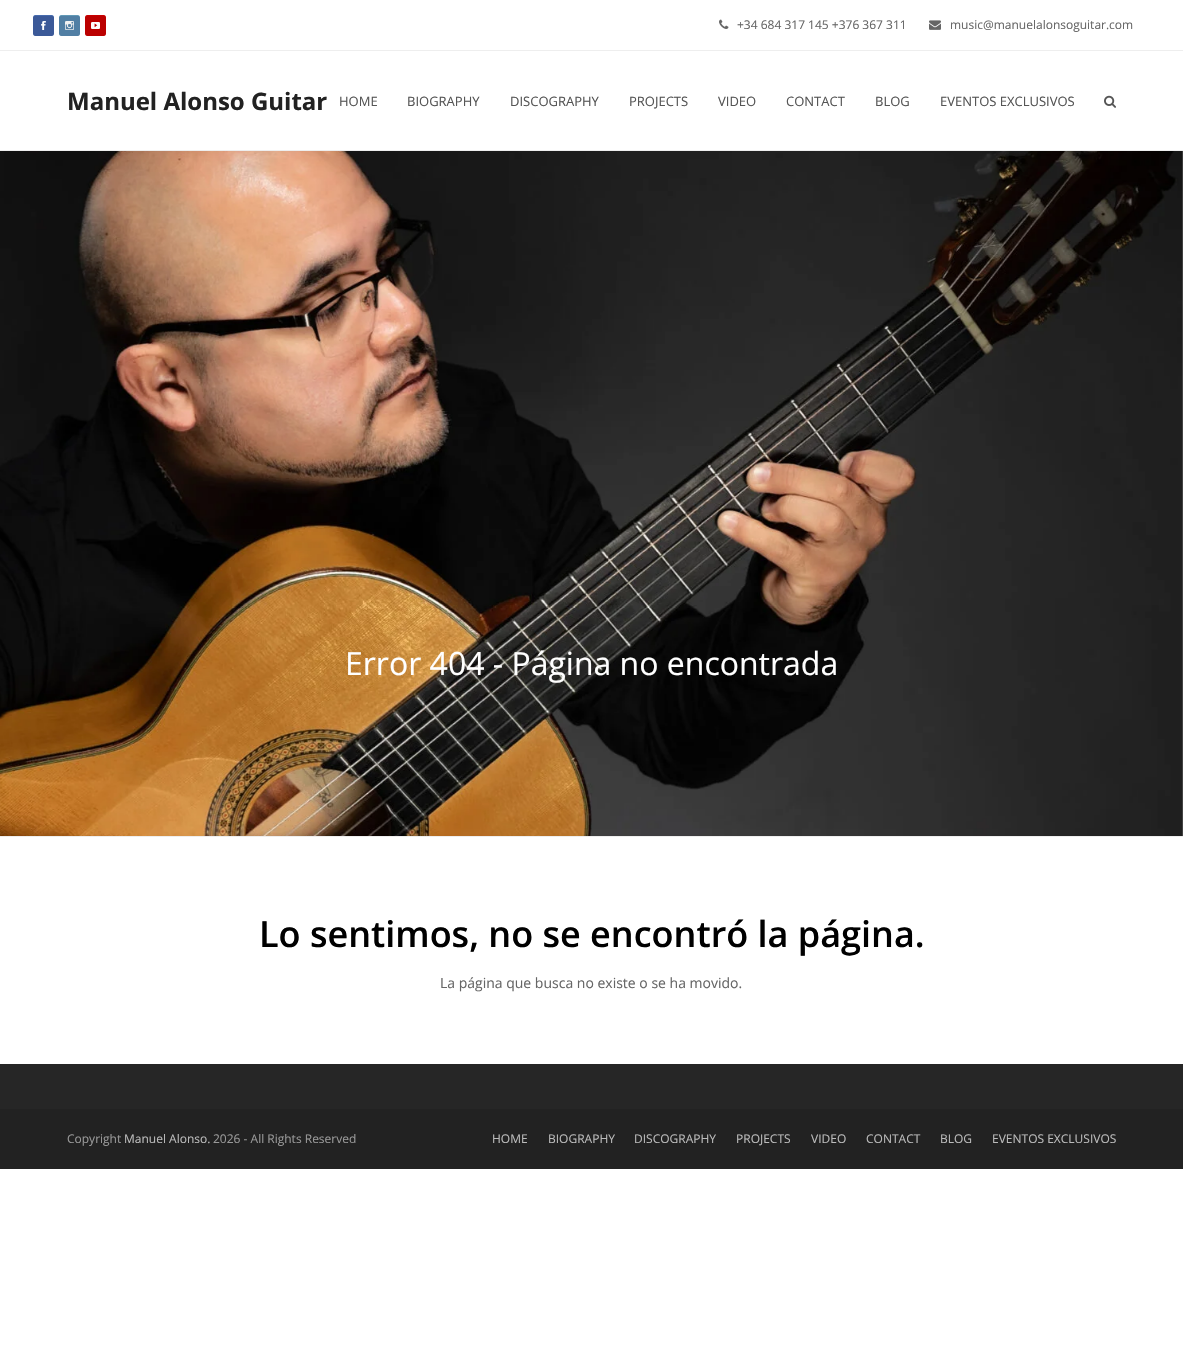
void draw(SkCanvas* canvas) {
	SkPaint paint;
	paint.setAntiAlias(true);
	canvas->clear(0xffffffff);
	paint.setColor(0xffeeeeee);
	canvas->drawRect(SkRect::MakeXYWH(0, 50, 1183, 1), paint);
	canvas->drawImageRect(SkImages::DeferredFromEncodedData(SkData::MakeFromFileName("img1.png")), SkRect::MakeXYWH(33, 15, 21, 21), SkSamplingOptions());
	canvas->drawImageRect(SkImages::DeferredFromEncodedData(SkData::MakeFromFileName("img2.png")), SkRect::MakeXYWH(59, 15, 21, 21), SkSamplingOptions());
	canvas->drawImageRect(SkImages::DeferredFromEncodedData(SkData::MakeFromFileName("img3.png")), SkRect::MakeXYWH(85, 15, 21, 21), SkSamplingOptions());
	canvas->drawImageRect(SkImages::DeferredFromEncodedData(SkData::MakeFromFileName("img4.png")), SkRect::MakeXYWH(719, 19, 10, 10), SkSamplingOptions());
	SkFont f1(fontMgr->matchFamilyStyle("Open Sans", SkFontStyle::Normal()), 12);
	f1.setSubpixel(true);
	paint.setColor(0xff666666);
	canvas->drawString("+34 684 317 145 +376 367 311", 737, 29, f1, paint);
	canvas->drawImageRect(SkImages::DeferredFromEncodedData(SkData::MakeFromFileName("img5.png")), SkRect::MakeXYWH(929, 20, 12, 10), SkSamplingOptions());
	canvas->drawString("music@manuelalonsoguitar.com", 950, 29, f1, paint);
	SkFont f2(fontMgr->matchFamilyStyle("Open Sans", SkFontStyle::Bold()), 24);
	f2.setSubpixel(true);
	paint.setColor(0xff222222);
	canvas->drawString("Manuel Alonso Guitar", 67, 110, f2, paint);
	SkFont f3(fontMgr->matchFamilyStyle("Open Sans", SkFontStyle::Normal()), 13);
	f3.setSubpixel(true);
	paint.setColor(0xff555555);
	canvas->drawString("HOME", 339, 106, f3, paint);
	canvas->drawString("BIOGRAPHY", 407, 106, f3, paint);
	canvas->drawString("DISCOGRAPHY", 510, 106, f3, paint);
	canvas->drawString("PROJECTS", 629, 106, f3, paint);
	canvas->drawString("VIDEO", 718, 106, f3, paint);
	canvas->drawString("CONTACT", 786, 106, f3, paint);
	canvas->drawString("BLOG", 875, 106, f3, paint);
	canvas->drawString("EVENTOS EXCLUSIVOS", 940, 106, f3, paint);
	canvas->drawImageRect(SkImages::DeferredFromEncodedData(SkData::MakeFromFileName("img6.png")), SkRect::MakeXYWH(1104, 95, 12, 13), SkSamplingOptions());
	canvas->drawImageRect(SkImages::DeferredFromEncodedData(SkData::MakeFromFileName("img7.png")), SkRect::MakeXYWH(0, 151, 1183, 685), SkSamplingOptions());
	paint.setColor(0xffeeeeee);
	canvas->drawRect(SkRect::MakeXYWH(0, 150, 1183, 1), paint);
	canvas->drawRect(SkRect::MakeXYWH(0, 836, 1183, 1), paint);
	SkFont f4(fontMgr->matchFamilyStyle("Open Sans", SkFontStyle::Normal()), 32);
	f4.setSubpixel(true);
	paint.setColor(0xffffffff);
	canvas->drawString("Error 404 - Página no encontrada", 345, 675, f4, paint);
	SkFont f5(fontMgr->matchFamilyStyle("Open Sans", SkFontStyle(600, SkFontStyle::kNormal_Width, SkFontStyle::kUpright_Slant)), 36);
	f5.setSubpixel(true);
	paint.setColor(0xff000000);
	canvas->drawString("Lo sentimos, no se encontró la página.", 259, 947, f5, paint);
	SkFont f6(fontMgr->matchFamilyStyle("Open Sans", SkFontStyle::Normal()), 14);
	f6.setSubpixel(true);
	paint.setColor(0xff666666);
	canvas->drawString("La página que busca no existe o se ha movido.", 440, 988, f6, paint);
	paint.setColor(0xff262626);
	canvas->drawRect(SkRect::MakeXYWH(0, 1064, 1183, 45), paint);
	paint.setColor(0xff222222);
	canvas->drawRect(SkRect::MakeXYWH(0, 1109, 1183, 60), paint);
	paint.setColor(0xff999999);
	canvas->drawString("Copyright", 67, 1143, f1, paint);
	paint.setColor(0xffbbbbbb);
	canvas->drawString("Manuel Alonso.", 124, 1143, f1, paint);
	paint.setColor(0xff999999);
	canvas->drawString("2026 - All Rights Reserved", 213, 1143, f1, paint);
	paint.setColor(0xffbbbbbb);
	canvas->drawString("HOME", 492, 1143, f1, paint);
	canvas->drawString("BIOGRAPHY", 548, 1143, f1, paint);
	canvas->drawString("DISCOGRAPHY", 634, 1143, f1, paint);
	canvas->drawString("PROJECTS", 736, 1143, f1, paint);
	canvas->drawString("VIDEO", 811, 1143, f1, paint);
	canvas->drawString("CONTACT", 866, 1143, f1, paint);
	canvas->drawString("BLOG", 940, 1143, f1, paint);
	canvas->drawString("EVENTOS EXCLUSIVOS", 992, 1143, f1, paint);
}
